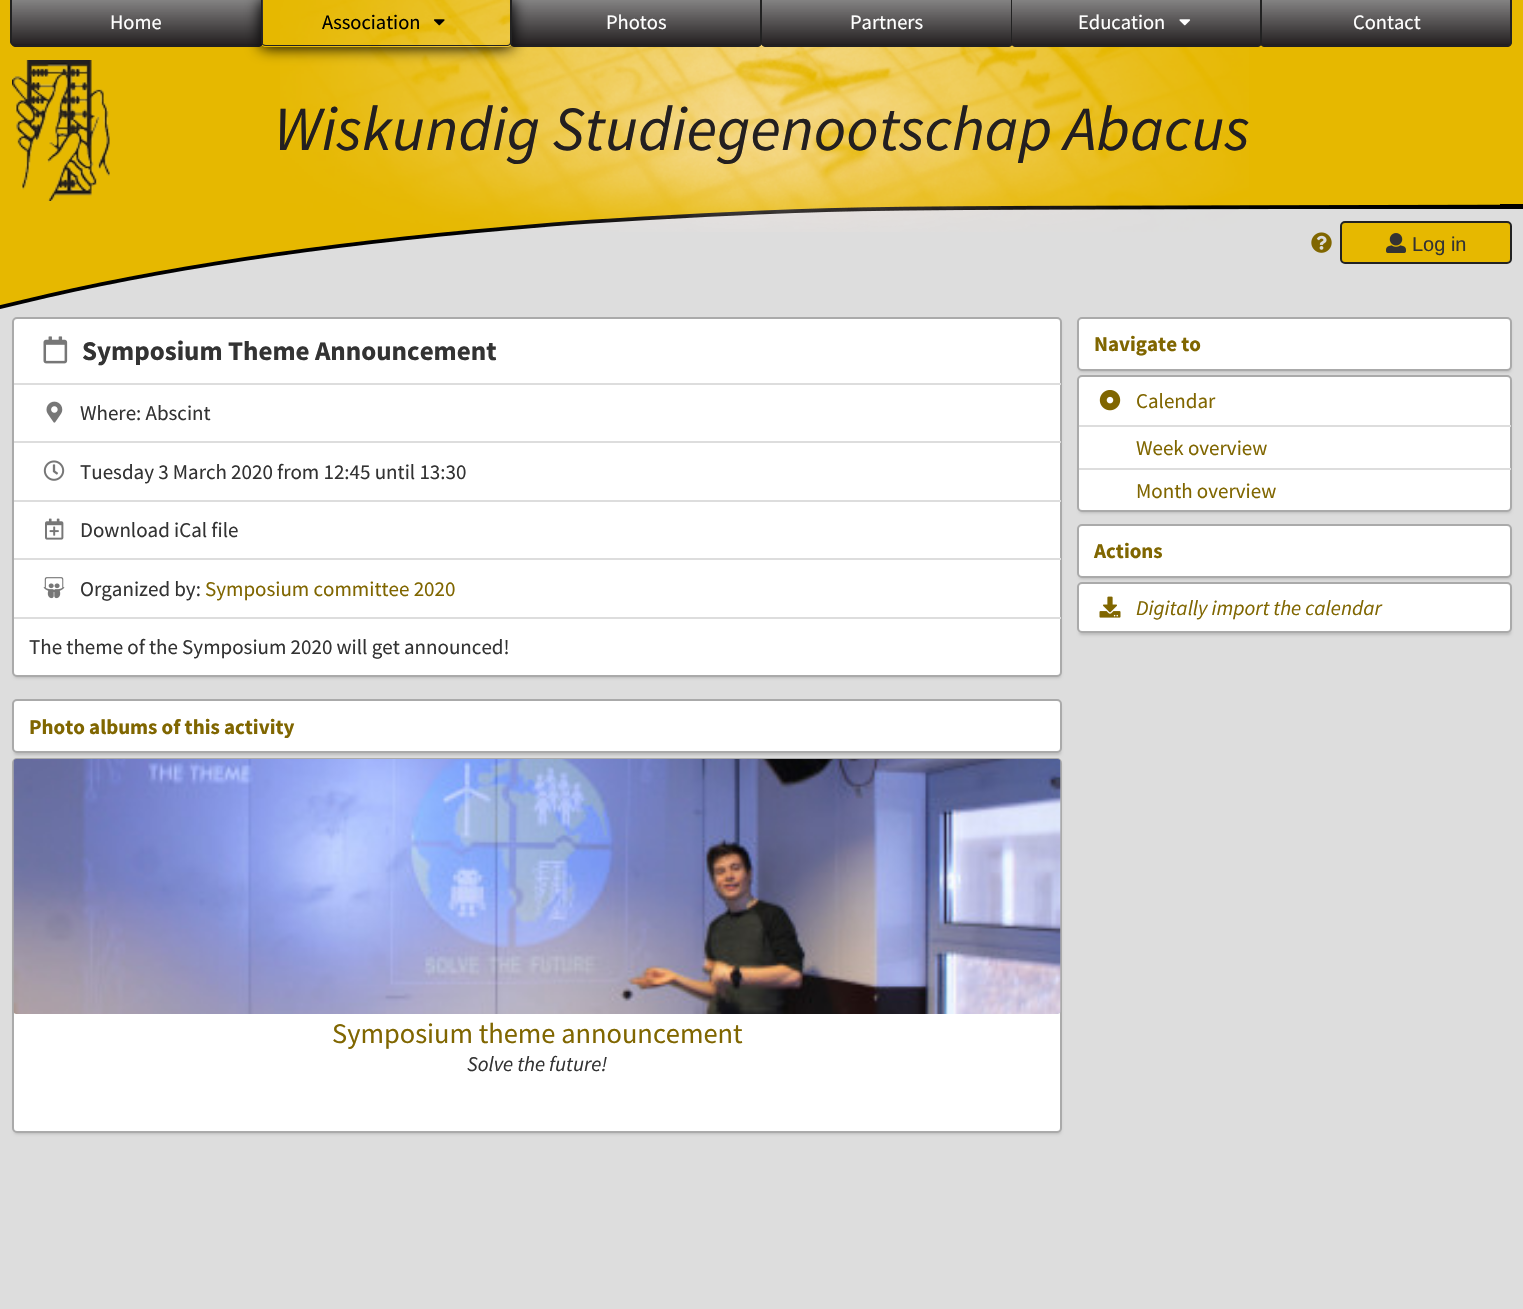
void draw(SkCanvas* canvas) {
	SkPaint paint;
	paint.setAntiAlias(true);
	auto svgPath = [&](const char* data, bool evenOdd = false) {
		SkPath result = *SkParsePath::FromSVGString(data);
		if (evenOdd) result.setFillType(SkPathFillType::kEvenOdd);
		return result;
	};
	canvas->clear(0xffdddddd);
	paint.setColor(0xffe6b800);
	canvas->drawRect(SkRect::MakeXYWH(0, 0, 1523, 204), paint);
	paint.setColor(0xff000000);
	canvas->drawRect(SkRect::MakeXYWH(1298, 204, 225, 5), paint);
	canvas->drawImageRect(SkImages::DeferredFromEncodedData(SkData::MakeFromFileName("img1.png")), SkRect::MakeXYWH(0, 204, 1500, 105), SkSamplingOptions());
	paint.setColor(0xff231f20);
	canvas->drawPath(svgPath("M11 0H263V42C263 45 261 47 258 47H16C13 47 11 45 11 42Z"), paint);
	canvas->drawImageRect(SkImages::DeferredFromEncodedData(SkData::MakeFromFileName("img2.png")), SkRect::MakeXYWH(12, 0, 251, 44), SkSamplingOptions());
	paint.setColor(0xff222222);
	canvas->drawPath(svgPath("M10 0H262V42C262 44 260 46 258 46H15C13 46 10 44 10 42ZM12 0H261V42C261 44 260 45 258 45H15C13 45 12 44 12 42Z", true), paint);
	SkFont f1(fontMgr->matchFamilyStyle("Source Sans Pro", SkFontStyle::Normal()), 20.5);
	f1.setSubpixel(true);
	paint.setColor(0xffffffff);
	canvas->drawString("Home", 110, 29, f1, paint);
	canvas->drawImageRect(SkImages::DeferredFromEncodedData(SkData::MakeFromFileName("img10.png")), SkRect::MakeXYWH(280, 0, 969, 232), SkSamplingOptions());
	paint.setColor(0xff231f20);
	canvas->drawPath(svgPath("M510 0H762V42C762 45 760 47 757 47H515C512 47 510 45 510 42Z"), paint);
	canvas->drawImageRect(SkImages::DeferredFromEncodedData(SkData::MakeFromFileName("img4.png")), SkRect::MakeXYWH(512, 0, 248, 44), SkSamplingOptions());
	paint.setColor(0xff222222);
	canvas->drawPath(svgPath("M510 0H762V42C762 44 760 46 758 46H514C512 46 510 44 510 42ZM512 0H760V42C760 44 759 45 758 45H514C513 45 512 44 512 42Z", true), paint);
	canvas->save();
	canvas->clipPath(svgPath("M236 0H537V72H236ZM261 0H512V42C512 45 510 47 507 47H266C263 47 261 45 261 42Z", true), true);
	paint.setColor(0xff000000);
	paint.setMaskFilter(SkMaskFilter::MakeBlur(kNormal_SkBlurStyle, 7.5));
	canvas->drawRoundRect(SkRect::MakeXYWH(260, -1, 253, 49), 6, 6, paint);
	paint.setMaskFilter(nullptr);
	canvas->restore();
	paint.setColor(0xff222222);
	canvas->drawPath(svgPath("M261 0H512V42C512 44 509 46 507 46H266C263 46 261 44 261 42ZM262 0H510V42C510 44 509 45 507 45H266C264 45 262 44 262 42Z", true), paint);
	paint.setColor(0xff000000);
	canvas->drawString("Association", 322, 29, f1, paint);
	canvas->drawImageRect(SkImages::DeferredFromEncodedData(SkData::MakeFromFileName("img3.png")), SkRect::MakeXYWH(434, 19, 11, 7), SkSamplingOptions());
	paint.setColor(0xffffffff);
	canvas->drawString("Photos", 606, 29, f1, paint);
	paint.setColor(0xff231f20);
	canvas->drawPath(svgPath("M761 0H1013V42C1013 45 1011 47 1008 47H766C763 47 761 45 761 42Z"), paint);
	canvas->drawImageRect(SkImages::DeferredFromEncodedData(SkData::MakeFromFileName("img5.png")), SkRect::MakeXYWH(762, 0, 250, 44), SkSamplingOptions());
	paint.setColor(0xff222222);
	canvas->drawPath(svgPath("M760 0H1012V42C1012 44 1010 46 1008 46H765C763 46 760 44 760 42ZM762 0H1011V42C1011 44 1010 45 1008 45H765C763 45 762 44 762 42Z", true), paint);
	paint.setColor(0xffffffff);
	canvas->drawString("Partners", 850, 29, f1, paint);
	paint.setColor(0xff231f20);
	canvas->drawPath(svgPath("M1260 0H1512V42C1512 45 1510 47 1507 47H1265C1262 47 1260 45 1260 42Z"), paint);
	canvas->drawImageRect(SkImages::DeferredFromEncodedData(SkData::MakeFromFileName("img8.png")), SkRect::MakeXYWH(1262, 0, 250, 44), SkSamplingOptions());
	paint.setColor(0xff222222);
	canvas->drawPath(svgPath("M1260 0H1512V42C1512 44 1510 46 1508 46H1264C1262 46 1260 44 1260 42ZM1262 0H1510V42C1510 44 1509 45 1508 45H1264C1263 45 1262 44 1262 42Z", true), paint);
	paint.setColor(0xff231f20);
	canvas->drawPath(svgPath("M1011 0H1262V42C1262 45 1260 47 1257 47H1016C1013 47 1011 45 1011 42Z"), paint);
	canvas->drawImageRect(SkImages::DeferredFromEncodedData(SkData::MakeFromFileName("img6.png")), SkRect::MakeXYWH(1011, 0, 249, 44), SkSamplingOptions());
	paint.setColor(0xff222222);
	canvas->drawPath(svgPath("M1011 0H1262V42C1262 44 1259 46 1257 46H1016C1013 46 1011 44 1011 42ZM1012 0H1260V42C1260 44 1259 45 1257 45H1016C1014 45 1012 44 1012 42Z", true), paint);
	paint.setColor(0xffffffff);
	canvas->drawString("Education", 1078, 29, f1, paint);
	canvas->drawImageRect(SkImages::DeferredFromEncodedData(SkData::MakeFromFileName("img7.png")), SkRect::MakeXYWH(1179, 19, 12, 7), SkSamplingOptions());
	canvas->drawString("Contact", 1353, 29, f1, paint);
	canvas->drawImageRect(SkImages::DeferredFromEncodedData(SkData::MakeFromFileName("img9.png")), SkRect::MakeXYWH(12, 60, 98, 141), SkSamplingOptions());
	SkFont f2(fontMgr->matchFamilyStyle("Source Sans Pro", SkFontStyle::Italic()), 63);
	f2.setSubpixel(true);
	paint.setColor(0xff231f20);
	canvas->drawString("Wiskundig Studiegenootschap Abacus", 274, 150, f2, paint);
	canvas->drawImageRect(SkImages::DeferredFromEncodedData(SkData::MakeFromFileName("img11.png")), SkRect::MakeXYWH(1311, 232, 21, 21), SkSamplingOptions());
	paint.setColor(0xffe6b800);
	canvas->drawRoundRect(SkRect::MakeXYWH(1341, 222, 170, 41), 4, 4, paint);
	paint.setStroke(true);
	paint.setStrokeWidth(2);
	paint.setColor(0xff222222);
	canvas->drawRoundRect(SkRect::MakeXYWH(1341, 222, 170, 41), 4, 4, paint);
	canvas->drawImageRect(SkImages::DeferredFromEncodedData(SkData::MakeFromFileName("img12.png")), SkRect::MakeXYWH(1386, 233, 20, 20), SkSamplingOptions());
	SkFont f3(fontMgr->matchFamilyStyle("Liberation Sans", SkFontStyle::Normal()), 20);
	f3.setSubpixel(true);
	paint.setStroke(false);
	paint.setColor(0xff333333);
	canvas->drawString("Log in", 1412, 251, f3, paint);
	paint.setColor(0x26000000);
	paint.setMaskFilter(SkMaskFilter::MakeBlur(kNormal_SkBlurStyle, 1.5));
	canvas->drawRoundRect(SkRect::MakeXYWH(14, 321, 1047, 357), 3, 3, paint);
	paint.setMaskFilter(nullptr);
	paint.setColor(0xffffffff);
	canvas->drawRoundRect(SkRect::MakeXYWH(13, 318, 1048, 358), 4, 4, paint);
	paint.setStroke(true);
	paint.setColor(0xffaaaaaa);
	canvas->drawRoundRect(SkRect::MakeXYWH(13, 318, 1048, 358), 4, 4, paint);
	canvas->drawImageRect(SkImages::DeferredFromEncodedData(SkData::MakeFromFileName("img13.png")), SkRect::MakeXYWH(43, 336, 25, 28), SkSamplingOptions());
	SkFont f4(fontMgr->matchFamilyStyle("Source Sans Pro", SkFontStyle::Bold()), 27);
	f4.setSubpixel(true);
	paint.setStroke(false);
	paint.setColor(0xff333333);
	canvas->drawString("Symposium Theme Announcement", 82, 360, f4, paint);
	paint.setColor(0xffdddddd);
	canvas->drawRect(SkRect::MakeXYWH(14, 383, 1047, 2), paint);
	canvas->drawImageRect(SkImages::DeferredFromEncodedData(SkData::MakeFromFileName("img14.png")), SkRect::MakeXYWH(46, 401, 17, 22), SkSamplingOptions());
	SkFont f5(fontMgr->matchFamilyStyle("Source Sans Pro", SkFontStyle::Normal()), 21);
	f5.setSubpixel(true);
	paint.setColor(0xff333333);
	canvas->drawString("Where: Abscint", 80, 420, f5, paint);
	paint.setColor(0xffdddddd);
	canvas->drawRect(SkRect::MakeXYWH(14, 441, 1047, 2), paint);
	canvas->drawImageRect(SkImages::DeferredFromEncodedData(SkData::MakeFromFileName("img15.png")), SkRect::MakeXYWH(43, 460, 22, 21), SkSamplingOptions());
	paint.setColor(0xff333333);
	canvas->drawString("Tuesday 3 March 2020 from 12:45 until 13:30", 80, 479, f5, paint);
	paint.setColor(0xffdddddd);
	canvas->drawRect(SkRect::MakeXYWH(14, 500, 1047, 2), paint);
	canvas->drawImageRect(SkImages::DeferredFromEncodedData(SkData::MakeFromFileName("img16.png")), SkRect::MakeXYWH(45, 518, 19, 22), SkSamplingOptions());
	paint.setColor(0xff333333);
	canvas->drawString("Download iCal file", 80, 537, f5, paint);
	paint.setColor(0xffdddddd);
	canvas->drawRect(SkRect::MakeXYWH(14, 558, 1047, 2), paint);
	canvas->drawImageRect(SkImages::DeferredFromEncodedData(SkData::MakeFromFileName("img17.png")), SkRect::MakeXYWH(43, 577, 22, 22), SkSamplingOptions());
	paint.setColor(0xff333333);
	canvas->drawString("Organized by:", 80, 596, f5, paint);
	paint.setColor(0xff806600);
	canvas->drawString("Symposium committee 2020", 205, 596, f5, paint);
	paint.setColor(0xffdddddd);
	canvas->drawRect(SkRect::MakeXYWH(14, 617, 1047, 2), paint);
	paint.setColor(0xff333333);
	canvas->drawString("The theme of the Symposium 2020 will get announced!", 29, 654, f5, paint);
	paint.setColor(0x26000000);
	paint.setMaskFilter(SkMaskFilter::MakeBlur(kNormal_SkBlurStyle, 1.5));
	canvas->drawRoundRect(SkRect::MakeXYWH(14, 704, 1047, 51), 3, 3, paint);
	paint.setMaskFilter(nullptr);
	paint.setColor(0xffffffff);
	canvas->drawRoundRect(SkRect::MakeXYWH(13, 700, 1048, 52), 4, 4, paint);
	paint.setStroke(true);
	paint.setColor(0xffaaaaaa);
	canvas->drawRoundRect(SkRect::MakeXYWH(13, 700, 1048, 52), 4, 4, paint);
	SkFont f6(fontMgr->matchFamilyStyle("Source Sans Pro", SkFontStyle::Bold()), 21);
	f6.setSubpixel(true);
	paint.setStroke(false);
	paint.setColor(0xff806600);
	canvas->drawString("Photo albums of this activity", 29, 734, f6, paint);
	paint.setColor(0x26000000);
	paint.setMaskFilter(SkMaskFilter::MakeBlur(kNormal_SkBlurStyle, 1.5));
	canvas->drawRoundRect(SkRect::MakeXYWH(14, 762, 1047, 372), 3, 3, paint);
	paint.setMaskFilter(nullptr);
	paint.setColor(0xffffffff);
	canvas->drawRoundRect(SkRect::MakeXYWH(13, 759, 1048, 373), 4, 4, paint);
	paint.setStroke(true);
	paint.setColor(0xffaaaaaa);
	canvas->drawRoundRect(SkRect::MakeXYWH(13, 759, 1048, 373), 4, 4, paint);
	canvas->drawImageRect(SkImages::DeferredFromEncodedData(SkData::MakeFromFileName("img18.png")), SkRect::MakeXYWH(13, 759, 1048, 255), SkSamplingOptions());
	SkFont f7(fontMgr->matchFamilyStyle("Source Sans Pro", SkFontStyle::Normal()), 28.4);
	f7.setSubpixel(true);
	paint.setStroke(false);
	paint.setColor(0xff806600);
	canvas->drawString("Symposium theme announcement", 332, 1043, f7, paint);
	SkFont f8(fontMgr->matchFamilyStyle("Source Sans Pro", SkFontStyle::Italic()), 21);
	f8.setSubpixel(true);
	paint.setColor(0xff333333);
	canvas->drawString("Solve the future!", 467, 1071, f8, paint);
	paint.setColor(0x26000000);
	paint.setMaskFilter(SkMaskFilter::MakeBlur(kNormal_SkBlurStyle, 1.5));
	canvas->drawRoundRect(SkRect::MakeXYWH(1079, 321, 432, 51), 3, 3, paint);
	paint.setMaskFilter(nullptr);
	paint.setColor(0xffffffff);
	canvas->drawRoundRect(SkRect::MakeXYWH(1078, 318, 433, 52), 4, 4, paint);
	paint.setStroke(true);
	paint.setColor(0xffaaaaaa);
	canvas->drawRoundRect(SkRect::MakeXYWH(1078, 318, 433, 52), 4, 4, paint);
	paint.setStroke(false);
	paint.setColor(0xff806600);
	canvas->drawString("Navigate to", 1094, 351, f6, paint);
	paint.setColor(0x26000000);
	paint.setMaskFilter(SkMaskFilter::MakeBlur(kNormal_SkBlurStyle, 1.5));
	canvas->drawRoundRect(SkRect::MakeXYWH(1079, 380, 432, 133), 3, 3, paint);
	paint.setMaskFilter(nullptr);
	paint.setColor(0xffffffff);
	canvas->drawRoundRect(SkRect::MakeXYWH(1078, 376, 433, 135), 4, 4, paint);
	paint.setStroke(true);
	paint.setColor(0xffaaaaaa);
	canvas->drawRoundRect(SkRect::MakeXYWH(1078, 376, 433, 135), 4, 4, paint);
	canvas->drawImageRect(SkImages::DeferredFromEncodedData(SkData::MakeFromFileName("img19.png")), SkRect::MakeXYWH(1099, 390, 22, 21), SkSamplingOptions());
	paint.setStroke(false);
	paint.setColor(0xff806600);
	canvas->drawString("Calendar", 1136, 408, f5, paint);
	paint.setColor(0xffdddddd);
	canvas->drawRect(SkRect::MakeXYWH(1079, 425, 432, 2), paint);
	paint.setColor(0xff806600);
	canvas->drawString("Week overview", 1136, 455, f5, paint);
	paint.setColor(0xffdddddd);
	canvas->drawRect(SkRect::MakeXYWH(1079, 468, 432, 2), paint);
	paint.setColor(0xff806600);
	canvas->drawString("Month overview", 1136, 498, f5, paint);
	paint.setColor(0x26000000);
	paint.setMaskFilter(SkMaskFilter::MakeBlur(kNormal_SkBlurStyle, 1.5));
	canvas->drawRoundRect(SkRect::MakeXYWH(1079, 528, 432, 51), 3, 3, paint);
	paint.setMaskFilter(nullptr);
	paint.setColor(0xffffffff);
	canvas->drawRoundRect(SkRect::MakeXYWH(1078, 525, 433, 52), 4, 4, paint);
	paint.setStroke(true);
	paint.setColor(0xffaaaaaa);
	canvas->drawRoundRect(SkRect::MakeXYWH(1078, 525, 433, 52), 4, 4, paint);
	paint.setStroke(false);
	paint.setColor(0xff806600);
	canvas->drawString("Actions", 1094, 558, f6, paint);
	paint.setColor(0x26000000);
	paint.setMaskFilter(SkMaskFilter::MakeBlur(kNormal_SkBlurStyle, 1.5));
	canvas->drawRoundRect(SkRect::MakeXYWH(1079, 587, 432, 48), 3, 3, paint);
	paint.setMaskFilter(nullptr);
	paint.setColor(0xffffffff);
	canvas->drawRoundRect(SkRect::MakeXYWH(1078, 583, 433, 49), 4, 4, paint);
	paint.setStroke(true);
	paint.setColor(0xffaaaaaa);
	canvas->drawRoundRect(SkRect::MakeXYWH(1078, 583, 433, 49), 4, 4, paint);
	canvas->drawImageRect(SkImages::DeferredFromEncodedData(SkData::MakeFromFileName("img20.png")), SkRect::MakeXYWH(1099, 596, 22, 22), SkSamplingOptions());
	paint.setStroke(false);
	paint.setColor(0xff806600);
	canvas->drawString("Digitally import the calendar", 1136, 615, f8, paint);
}
